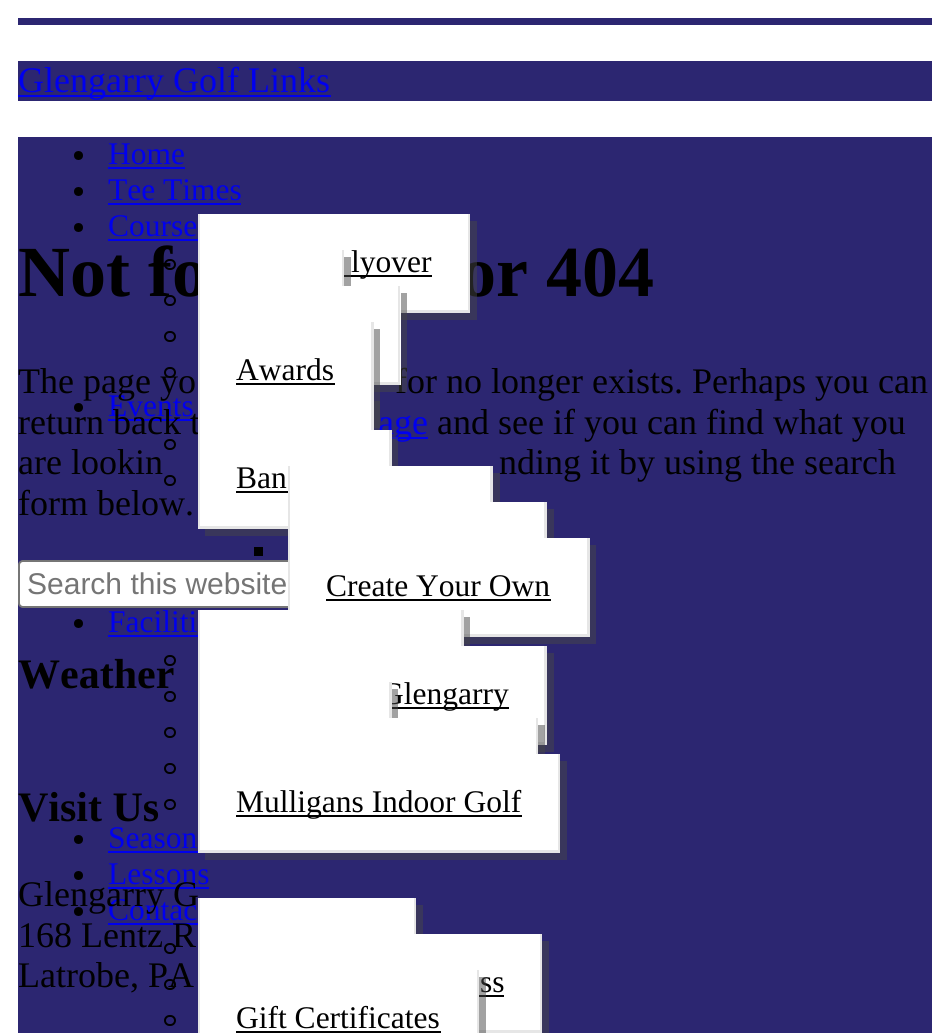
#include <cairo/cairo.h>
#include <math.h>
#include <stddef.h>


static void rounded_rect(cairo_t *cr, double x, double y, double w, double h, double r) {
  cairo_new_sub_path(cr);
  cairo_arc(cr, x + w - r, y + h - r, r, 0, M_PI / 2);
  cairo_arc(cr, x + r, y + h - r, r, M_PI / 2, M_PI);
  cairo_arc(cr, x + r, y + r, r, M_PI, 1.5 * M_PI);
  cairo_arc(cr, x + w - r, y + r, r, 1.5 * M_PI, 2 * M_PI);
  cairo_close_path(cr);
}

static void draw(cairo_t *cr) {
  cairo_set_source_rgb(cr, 1, 1, 1);
  cairo_paint(cr);
  cairo_set_source_rgb(cr, 44 / 255.0, 38 / 255.0, 113 / 255.0);
  cairo_rectangle(cr, 18, 18, 914, 7);
  cairo_fill(cr);
  cairo_rectangle(cr, 18, 61, 914, 40);
  cairo_fill(cr);
  cairo_set_source_rgb(cr, 0, 0, 238 / 255.0);
  cairo_rectangle(cr, 18, 95, 313, 2);
  cairo_fill(cr);
  cairo_set_source_rgb(cr, 44 / 255.0, 38 / 255.0, 113 / 255.0);
  cairo_rectangle(cr, 18, 137, 914, 896);
  cairo_fill(cr);
  cairo_set_source_rgb(cr, 0, 0, 0);
  cairo_arc(cr, 78.5, 155.5, 4.5, 0, 2 * M_PI);
  cairo_fill(cr);
  cairo_set_source_rgb(cr, 0, 0, 238 / 255.0);
  cairo_rectangle(cr, 108, 167, 77, 2);
  cairo_fill(cr);
  cairo_set_source_rgb(cr, 0, 0, 0);
  cairo_arc(cr, 78.5, 191.5, 4.5, 0, 2 * M_PI);
  cairo_fill(cr);
  cairo_set_source_rgb(cr, 0, 0, 238 / 255.0);
  cairo_rectangle(cr, 108, 203, 133, 2);
  cairo_fill(cr);
  cairo_set_source_rgb(cr, 0, 0, 0);
  cairo_arc(cr, 78.5, 227.5, 4.5, 0, 2 * M_PI);
  cairo_fill(cr);
  cairo_set_source_rgb(cr, 0, 0, 238 / 255.0);
  cairo_rectangle(cr, 108, 239, 90, 2);
  cairo_fill(cr);
  rounded_rect(cr, 165, 296, 10, 9, 4.5);
  cairo_set_source_rgb(cr, 0, 0, 0);
  cairo_stroke(cr);
  rounded_rect(cr, 165, 260, 10, 9, 4.5);
  cairo_stroke(cr);
  rounded_rect(cr, 165, 332, 10, 9, 4.5);
  cairo_stroke(cr);
  rounded_rect(cr, 165, 368, 10, 9, 4.5);
  cairo_stroke(cr);
  cairo_arc(cr, 78.5, 407.5, 4.5, 0, 2 * M_PI);
  cairo_fill(cr);
  cairo_set_source_rgb(cr, 0, 0, 238 / 255.0);
  cairo_rectangle(cr, 108, 419, 86, 2);
  cairo_fill(cr);
  rounded_rect(cr, 165, 440, 10, 9, 4.5);
  cairo_set_source_rgb(cr, 0, 0, 0);
  cairo_stroke(cr);
  rounded_rect(cr, 165, 476, 10, 9, 4.5);
  cairo_stroke(cr);
  cairo_rectangle(cr, 254, 547, 9, 9);
  cairo_fill(cr);
  cairo_arc(cr, 78.5, 623.5, 4.5, 0, 2 * M_PI);
  cairo_fill(cr);
  cairo_set_source_rgb(cr, 0, 0, 238 / 255.0);
  cairo_rectangle(cr, 108, 635, 90, 2);
  cairo_fill(cr);
  rounded_rect(cr, 165, 656, 10, 9, 4.5);
  cairo_set_source_rgb(cr, 0, 0, 0);
  cairo_stroke(cr);
  rounded_rect(cr, 165, 728, 10, 9, 4.5);
  cairo_stroke(cr);
  rounded_rect(cr, 165, 692, 10, 9, 4.5);
  cairo_stroke(cr);
  rounded_rect(cr, 165, 764, 10, 9, 4.5);
  cairo_stroke(cr);
  rounded_rect(cr, 165, 800, 10, 9, 4.5);
  cairo_stroke(cr);
  cairo_arc(cr, 78.5, 839.5, 4.5, 0, 2 * M_PI);
  cairo_fill(cr);
  cairo_set_source_rgb(cr, 0, 0, 238 / 255.0);
  cairo_rectangle(cr, 108, 851, 90, 2);
  cairo_fill(cr);
  cairo_set_source_rgb(cr, 0, 0, 0);
  cairo_arc(cr, 78.5, 875.5, 4.5, 0, 2 * M_PI);
  cairo_fill(cr);
  cairo_set_source_rgb(cr, 0, 0, 238 / 255.0);
  cairo_rectangle(cr, 108, 887, 101, 2);
  cairo_fill(cr);
  cairo_set_source_rgb(cr, 0, 0, 0);
  cairo_arc(cr, 78.5, 911.5, 4.5, 0, 2 * M_PI);
  cairo_fill(cr);
  cairo_set_source_rgb(cr, 0, 0, 238 / 255.0);
  cairo_rectangle(cr, 108, 923, 90, 2);
  cairo_fill(cr);
  cairo_set_source_rgb(cr, 57 / 255.0, 54 / 255.0, 92 / 255.0);
  cairo_new_path(cr);
  cairo_move_to(cr, 205, 997);
  cairo_line_to(cr, 205, 1004);
  cairo_line_to(cr, 423, 1004);
  cairo_line_to(cr, 423, 905);
  cairo_line_to(cr, 416, 905);
  cairo_line_to(cr, 416, 997);
  cairo_close_path(cr);
  cairo_fill(cr);
  cairo_set_source_rgb(cr, 1, 1, 1);
  cairo_rectangle(cr, 198, 898, 216, 36);
  cairo_fill(cr);
  cairo_set_source_rgba(cr, 0, 0, 0, 0.1);
  cairo_new_path(cr);
  cairo_move_to(cr, 198, 997);
  cairo_line_to(cr, 198, 898);
  cairo_line_to(cr, 200, 898);
  cairo_line_to(cr, 200, 994);
  cairo_close_path(cr);
  cairo_fill(cr);
  cairo_set_source_rgb(cr, 230 / 255.0, 230 / 255.0, 230 / 255.0);
  cairo_new_path(cr);
  cairo_move_to(cr, 416, 898);
  cairo_line_to(cr, 416, 997);
  cairo_line_to(cr, 414, 994);
  cairo_line_to(cr, 414, 898);
  cairo_close_path(cr);
  cairo_fill(cr);
  rounded_rect(cr, 165, 944, 10, 9, 4.5);
  cairo_set_source_rgb(cr, 0, 0, 0);
  cairo_stroke(cr);
  rounded_rect(cr, 165, 980, 10, 9, 4.5);
  cairo_stroke(cr);
  cairo_set_source_rgb(cr, 57 / 255.0, 54 / 255.0, 92 / 255.0);
  cairo_new_path(cr);
  cairo_move_to(cr, 205, 1033);
  cairo_line_to(cr, 205, 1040);
  cairo_line_to(cr, 549, 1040);
  cairo_line_to(cr, 549, 941);
  cairo_line_to(cr, 542, 941);
  cairo_line_to(cr, 542, 1033);
  cairo_close_path(cr);
  cairo_fill(cr);
  cairo_set_source_rgb(cr, 1, 1, 1);
  cairo_rectangle(cr, 198, 934, 344, 99);
  cairo_fill(cr);
  cairo_set_source_rgb(cr, 230 / 255.0, 230 / 255.0, 230 / 255.0);
  cairo_new_path(cr);
  cairo_move_to(cr, 542, 934);
  cairo_line_to(cr, 542, 1033);
  cairo_line_to(cr, 540, 1030);
  cairo_line_to(cr, 540, 934);
  cairo_close_path(cr);
  cairo_fill(cr);
  cairo_set_source_rgba(cr, 0, 0, 0, 0.1);
  cairo_new_path(cr);
  cairo_move_to(cr, 542, 1033);
  cairo_line_to(cr, 198, 1033);
  cairo_line_to(cr, 200, 1030);
  cairo_line_to(cr, 540, 1030);
  cairo_close_path(cr);
  cairo_fill(cr);
  cairo_new_path(cr);
  cairo_move_to(cr, 198, 1033);
  cairo_line_to(cr, 198, 934);
  cairo_line_to(cr, 200, 934);
  cairo_line_to(cr, 200, 1030);
  cairo_close_path(cr);
  cairo_fill(cr);
  cairo_set_source_rgb(cr, 0, 0, 0);
  cairo_rectangle(cr, 479, 995, 25, 2);
  cairo_fill(cr);
  rounded_rect(cr, 165, 1016, 10, 9, 4.5);
  cairo_stroke(cr);
  cairo_set_source_rgb(cr, 1, 1, 1);
  cairo_rectangle(cr, 200, 1030, 277, 3);
  cairo_fill(cr);
  cairo_set_source_rgb(cr, 230 / 255.0, 230 / 255.0, 230 / 255.0);
  cairo_new_path(cr);
  cairo_move_to(cr, 479, 970);
  cairo_line_to(cr, 479, 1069);
  cairo_line_to(cr, 477, 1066);
  cairo_line_to(cr, 477, 970);
  cairo_close_path(cr);
  cairo_fill(cr);
  cairo_set_source_rgb(cr, 0, 0, 0);
  cairo_rectangle(cr, 236, 1031, 205, 2);
  cairo_fill(cr);
  cairo_set_source_rgb(cr, 0, 0, 238 / 255.0);
  cairo_rectangle(cr, 392, 437, 36, 2);
  cairo_fill(cr);
  cairo_set_source_rgb(cr, 1, 1, 1);
  rounded_rect(cr, 19, 561, 414, 46, 4);
  cairo_fill_preserve(cr);
  cairo_set_source_rgb(cr, 118 / 255.0, 118 / 255.0, 118 / 255.0);
  cairo_stroke(cr);
  cairo_select_font_face(cr, "Liberation Serif", CAIRO_FONT_SLANT_NORMAL, CAIRO_FONT_WEIGHT_NORMAL);
  cairo_set_font_size(cr, 36);
  cairo_set_source_rgb(cr, 0, 0, 238 / 255.0);
  cairo_move_to(cr, 18, 92);
  cairo_show_text(cr, "Glengarry Golf Links");
  cairo_set_font_size(cr, 31.5);
  cairo_move_to(cr, 108, 164);
  cairo_show_text(cr, "Home");
  cairo_move_to(cr, 108, 200);
  cairo_show_text(cr, "Tee Times");
  cairo_move_to(cr, 108, 236);
  cairo_show_text(cr, "Course");
  cairo_move_to(cr, 108, 416);
  cairo_show_text(cr, "Events");
  cairo_move_to(cr, 108, 632);
  cairo_show_text(cr, "Faciliti");
  cairo_move_to(cr, 108, 848);
  cairo_show_text(cr, "Season");
  cairo_move_to(cr, 108, 884);
  cairo_show_text(cr, "Lessons");
  cairo_move_to(cr, 108, 920);
  cairo_show_text(cr, "Contac");
  cairo_set_source_rgb(cr, 0, 0, 0);
  cairo_move_to(cr, 480, 992);
  cairo_show_text(cr, "ss");
  cairo_move_to(cr, 236, 1028);
  cairo_show_text(cr, "Gift Certificates");
  cairo_set_source_rgba(cr, 70 / 255.0, 70 / 255.0, 70 / 255.0, 0.5);
  cairo_new_path(cr);
  cairo_move_to(cr, 205, 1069);
  cairo_line_to(cr, 205, 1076);
  cairo_line_to(cr, 486, 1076);
  cairo_line_to(cr, 486, 977);
  cairo_line_to(cr, 479, 977);
  cairo_line_to(cr, 479, 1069);
  cairo_close_path(cr);
  cairo_fill(cr);
  cairo_select_font_face(cr, "Liberation Serif", CAIRO_FONT_SLANT_NORMAL, CAIRO_FONT_WEIGHT_BOLD);
  cairo_set_font_size(cr, 72);
  cairo_set_source_rgb(cr, 0, 0, 0);
  cairo_move_to(cr, 18, 296);
  cairo_show_text(cr, "Not fo");
  cairo_move_to(cr, 460, 296);
  cairo_show_text(cr, "or 404");
  cairo_set_source_rgba(cr, 70 / 255.0, 70 / 255.0, 70 / 255.0, 0.5);
  cairo_new_path(cr);
  cairo_move_to(cr, 205, 313);
  cairo_line_to(cr, 205, 320);
  cairo_line_to(cr, 477, 320);
  cairo_line_to(cr, 477, 221);
  cairo_line_to(cr, 470, 221);
  cairo_line_to(cr, 470, 313);
  cairo_close_path(cr);
  cairo_fill(cr);
  cairo_set_source_rgb(cr, 1, 1, 1);
  cairo_rectangle(cr, 198, 214, 272, 99);
  cairo_fill(cr);
  cairo_set_source_rgb(cr, 230 / 255.0, 230 / 255.0, 230 / 255.0);
  cairo_new_path(cr);
  cairo_move_to(cr, 470, 214);
  cairo_line_to(cr, 470, 313);
  cairo_line_to(cr, 468, 310);
  cairo_line_to(cr, 468, 214);
  cairo_close_path(cr);
  cairo_fill(cr);
  cairo_set_source_rgba(cr, 0, 0, 0, 0.1);
  cairo_new_path(cr);
  cairo_move_to(cr, 470, 313);
  cairo_line_to(cr, 198, 313);
  cairo_line_to(cr, 200, 310);
  cairo_line_to(cr, 468, 310);
  cairo_close_path(cr);
  cairo_fill(cr);
  cairo_new_path(cr);
  cairo_move_to(cr, 198, 313);
  cairo_line_to(cr, 198, 214);
  cairo_line_to(cr, 200, 214);
  cairo_line_to(cr, 200, 310);
  cairo_close_path(cr);
  cairo_fill(cr);
  cairo_set_source_rgb(cr, 1, 1, 1);
  cairo_rectangle(cr, 198, 250, 2, 36);
  cairo_fill(cr);
  cairo_set_source_rgba(cr, 0, 0, 0, 0.1);
  cairo_new_path(cr);
  cairo_move_to(cr, 198, 349);
  cairo_line_to(cr, 198, 250);
  cairo_line_to(cr, 200, 250);
  cairo_line_to(cr, 200, 346);
  cairo_close_path(cr);
  cairo_fill(cr);
  cairo_set_source_rgb(cr, 0, 0, 0);
  cairo_rectangle(cr, 344, 275, 88, 2);
  cairo_fill(cr);
  cairo_set_source_rgba(cr, 70 / 255.0, 70 / 255.0, 70 / 255.0, 0.5);
  cairo_new_path(cr);
  cairo_move_to(cr, 205, 349);
  cairo_line_to(cr, 205, 356);
  cairo_line_to(cr, 351, 356);
  cairo_line_to(cr, 351, 257);
  cairo_line_to(cr, 344, 257);
  cairo_line_to(cr, 344, 349);
  cairo_close_path(cr);
  cairo_fill(cr);
  cairo_set_source_rgb(cr, 230 / 255.0, 230 / 255.0, 230 / 255.0);
  cairo_new_path(cr);
  cairo_move_to(cr, 344, 250);
  cairo_line_to(cr, 344, 349);
  cairo_line_to(cr, 342, 346);
  cairo_line_to(cr, 342, 250);
  cairo_close_path(cr);
  cairo_fill(cr);
  cairo_select_font_face(cr, "Liberation Serif", CAIRO_FONT_SLANT_NORMAL, CAIRO_FONT_WEIGHT_NORMAL);
  cairo_set_font_size(cr, 31.5);
  cairo_set_source_rgb(cr, 0, 0, 0);
  cairo_move_to(cr, 351, 272);
  cairo_show_text(cr, "lyover");
  cairo_set_font_size(cr, 36);
  cairo_move_to(cr, 18, 393);
  cairo_show_text(cr, "The page yo");
  cairo_move_to(cr, 395, 393);
  cairo_show_text(cr, "for no longer exists. Perhaps you can");
  cairo_set_source_rgba(cr, 70 / 255.0, 70 / 255.0, 70 / 255.0, 0.5);
  cairo_new_path(cr);
  cairo_move_to(cr, 205, 385);
  cairo_line_to(cr, 205, 392);
  cairo_line_to(cr, 407, 392);
  cairo_line_to(cr, 407, 293);
  cairo_line_to(cr, 400, 293);
  cairo_line_to(cr, 400, 385);
  cairo_close_path(cr);
  cairo_fill(cr);
  cairo_set_source_rgb(cr, 1, 1, 1);
  cairo_rectangle(cr, 198, 286, 203, 99);
  cairo_fill(cr);
  cairo_set_source_rgb(cr, 230 / 255.0, 230 / 255.0, 230 / 255.0);
  cairo_new_path(cr);
  cairo_move_to(cr, 400, 286);
  cairo_line_to(cr, 400, 385);
  cairo_line_to(cr, 398, 382);
  cairo_line_to(cr, 398, 286);
  cairo_close_path(cr);
  cairo_fill(cr);
  cairo_set_source_rgba(cr, 0, 0, 0, 0.1);
  cairo_new_path(cr);
  cairo_move_to(cr, 400, 385);
  cairo_line_to(cr, 198, 385);
  cairo_line_to(cr, 200, 382);
  cairo_line_to(cr, 398, 382);
  cairo_close_path(cr);
  cairo_fill(cr);
  cairo_new_path(cr);
  cairo_move_to(cr, 198, 385);
  cairo_line_to(cr, 198, 286);
  cairo_line_to(cr, 200, 286);
  cairo_line_to(cr, 200, 382);
  cairo_close_path(cr);
  cairo_fill(cr);
  cairo_set_source_rgb(cr, 0, 0, 0);
  cairo_move_to(cr, 18, 434);
  cairo_show_text(cr, "return back t");
  cairo_set_source_rgb(cr, 0, 0, 238 / 255.0);
  cairo_move_to(cr, 378, 434);
  cairo_show_text(cr, "age");
  cairo_set_source_rgba(cr, 70 / 255.0, 70 / 255.0, 70 / 255.0, 0.5);
  cairo_new_path(cr);
  cairo_move_to(cr, 205, 421);
  cairo_line_to(cr, 205, 428);
  cairo_line_to(cr, 380, 428);
  cairo_line_to(cr, 380, 329);
  cairo_line_to(cr, 374, 329);
  cairo_line_to(cr, 374, 421);
  cairo_close_path(cr);
  cairo_fill(cr);
  cairo_set_source_rgb(cr, 230 / 255.0, 230 / 255.0, 230 / 255.0);
  cairo_new_path(cr);
  cairo_move_to(cr, 374, 322);
  cairo_line_to(cr, 374, 421);
  cairo_line_to(cr, 371, 418);
  cairo_line_to(cr, 371, 322);
  cairo_close_path(cr);
  cairo_fill(cr);
  cairo_set_source_rgba(cr, 70 / 255.0, 70 / 255.0, 70 / 255.0, 0.5);
  cairo_new_path(cr);
  cairo_move_to(cr, 205, 493);
  cairo_line_to(cr, 205, 500);
  cairo_line_to(cr, 380, 500);
  cairo_line_to(cr, 380, 401);
  cairo_line_to(cr, 374, 401);
  cairo_line_to(cr, 374, 493);
  cairo_close_path(cr);
  cairo_fill(cr);
  cairo_set_source_rgb(cr, 230 / 255.0, 230 / 255.0, 230 / 255.0);
  cairo_new_path(cr);
  cairo_move_to(cr, 374, 394);
  cairo_line_to(cr, 374, 493);
  cairo_line_to(cr, 371, 490);
  cairo_line_to(cr, 371, 394);
  cairo_close_path(cr);
  cairo_fill(cr);
  cairo_set_source_rgba(cr, 70 / 255.0, 70 / 255.0, 70 / 255.0, 0.5);
  cairo_new_path(cr);
  cairo_move_to(cr, 205, 529);
  cairo_line_to(cr, 205, 536);
  cairo_line_to(cr, 398, 536);
  cairo_line_to(cr, 398, 437);
  cairo_line_to(cr, 392, 437);
  cairo_line_to(cr, 392, 529);
  cairo_close_path(cr);
  cairo_fill(cr);
  cairo_set_source_rgb(cr, 230 / 255.0, 230 / 255.0, 230 / 255.0);
  cairo_new_path(cr);
  cairo_move_to(cr, 392, 430);
  cairo_line_to(cr, 392, 529);
  cairo_line_to(cr, 389, 526);
  cairo_line_to(cr, 389, 430);
  cairo_close_path(cr);
  cairo_fill(cr);
  cairo_set_source_rgb(cr, 1, 1, 1);
  cairo_rectangle(cr, 198, 322, 173, 72);
  cairo_fill(cr);
  cairo_set_source_rgba(cr, 0, 0, 0, 0.1);
  cairo_new_path(cr);
  cairo_move_to(cr, 198, 421);
  cairo_line_to(cr, 198, 322);
  cairo_line_to(cr, 200, 322);
  cairo_line_to(cr, 200, 418);
  cairo_close_path(cr);
  cairo_fill(cr);
  cairo_set_source_rgb(cr, 1, 1, 1);
  cairo_rectangle(cr, 198, 394, 173, 36);
  cairo_fill(cr);
  cairo_set_source_rgba(cr, 0, 0, 0, 0.1);
  cairo_new_path(cr);
  cairo_move_to(cr, 198, 493);
  cairo_line_to(cr, 198, 394);
  cairo_line_to(cr, 200, 394);
  cairo_line_to(cr, 200, 490);
  cairo_close_path(cr);
  cairo_fill(cr);
  cairo_set_source_rgb(cr, 1, 1, 1);
  cairo_rectangle(cr, 198, 430, 191, 99);
  cairo_fill(cr);
  cairo_set_source_rgba(cr, 0, 0, 0, 0.1);
  cairo_new_path(cr);
  cairo_move_to(cr, 392, 529);
  cairo_line_to(cr, 198, 529);
  cairo_line_to(cr, 200, 526);
  cairo_line_to(cr, 389, 526);
  cairo_close_path(cr);
  cairo_fill(cr);
  cairo_new_path(cr);
  cairo_move_to(cr, 288, 565);
  cairo_line_to(cr, 288, 466);
  cairo_line_to(cr, 290, 466);
  cairo_line_to(cr, 290, 562);
  cairo_close_path(cr);
  cairo_fill(cr);
  cairo_set_font_size(cr, 31.5);
  cairo_set_source_rgb(cr, 0, 0, 0);
  cairo_move_to(cr, 236, 488);
  cairo_show_text(cr, "Ban");
  cairo_rectangle(cr, 236, 491, 52, 2);
  cairo_fill(cr);
  cairo_set_source_rgba(cr, 0, 0, 0, 0.1);
  cairo_new_path(cr);
  cairo_move_to(cr, 198, 529);
  cairo_line_to(cr, 198, 430);
  cairo_line_to(cr, 200, 430);
  cairo_line_to(cr, 200, 526);
  cairo_close_path(cr);
  cairo_fill(cr);
  cairo_set_source_rgb(cr, 0, 0, 0);
  cairo_move_to(cr, 236, 380);
  cairo_show_text(cr, "Awards");
  cairo_rectangle(cr, 236, 383, 99, 2);
  cairo_fill(cr);
  cairo_set_font_size(cr, 36);
  cairo_move_to(cr, 437, 434);
  cairo_show_text(cr, "and see if you can find what you");
  cairo_move_to(cr, 18, 474);
  cairo_show_text(cr, "are lookin");
  cairo_move_to(cr, 499, 474);
  cairo_show_text(cr, "nding it by using the search");
  cairo_set_source_rgba(cr, 70 / 255.0, 70 / 255.0, 70 / 255.0, 0.5);
  cairo_new_path(cr);
  cairo_move_to(cr, 295, 565);
  cairo_line_to(cr, 295, 572);
  cairo_line_to(cr, 500, 572);
  cairo_line_to(cr, 500, 473);
  cairo_line_to(cr, 493, 473);
  cairo_line_to(cr, 493, 565);
  cairo_close_path(cr);
  cairo_fill(cr);
  cairo_set_source_rgb(cr, 230 / 255.0, 230 / 255.0, 230 / 255.0);
  cairo_new_path(cr);
  cairo_move_to(cr, 493, 466);
  cairo_line_to(cr, 493, 565);
  cairo_line_to(cr, 490, 562);
  cairo_line_to(cr, 490, 466);
  cairo_close_path(cr);
  cairo_fill(cr);
  cairo_set_source_rgba(cr, 70 / 255.0, 70 / 255.0, 70 / 255.0, 0.5);
  cairo_new_path(cr);
  cairo_move_to(cr, 295, 601);
  cairo_line_to(cr, 295, 608);
  cairo_line_to(cr, 554, 608);
  cairo_line_to(cr, 554, 509);
  cairo_line_to(cr, 547, 509);
  cairo_line_to(cr, 547, 601);
  cairo_close_path(cr);
  cairo_fill(cr);
  cairo_set_source_rgb(cr, 230 / 255.0, 230 / 255.0, 230 / 255.0);
  cairo_new_path(cr);
  cairo_move_to(cr, 547, 502);
  cairo_line_to(cr, 547, 601);
  cairo_line_to(cr, 544, 598);
  cairo_line_to(cr, 544, 502);
  cairo_close_path(cr);
  cairo_fill(cr);
  cairo_set_source_rgb(cr, 57 / 255.0, 54 / 255.0, 92 / 255.0);
  cairo_new_path(cr);
  cairo_move_to(cr, 295, 637);
  cairo_line_to(cr, 295, 644);
  cairo_line_to(cr, 596, 644);
  cairo_line_to(cr, 596, 545);
  cairo_line_to(cr, 590, 545);
  cairo_line_to(cr, 590, 637);
  cairo_close_path(cr);
  cairo_fill(cr);
  cairo_set_source_rgb(cr, 1, 1, 1);
  cairo_rectangle(cr, 288, 502, 256, 36);
  cairo_fill(cr);
  cairo_set_source_rgba(cr, 0, 0, 0, 0.1);
  cairo_new_path(cr);
  cairo_move_to(cr, 288, 601);
  cairo_line_to(cr, 288, 502);
  cairo_line_to(cr, 290, 502);
  cairo_line_to(cr, 290, 598);
  cairo_close_path(cr);
  cairo_fill(cr);
  cairo_set_source_rgb(cr, 1, 1, 1);
  cairo_rectangle(cr, 288, 538, 302, 99);
  cairo_fill(cr);
  cairo_set_source_rgb(cr, 230 / 255.0, 230 / 255.0, 230 / 255.0);
  cairo_new_path(cr);
  cairo_move_to(cr, 590, 538);
  cairo_line_to(cr, 590, 637);
  cairo_line_to(cr, 587, 634);
  cairo_line_to(cr, 587, 538);
  cairo_close_path(cr);
  cairo_fill(cr);
  cairo_set_source_rgba(cr, 0, 0, 0, 0.1);
  cairo_new_path(cr);
  cairo_move_to(cr, 590, 637);
  cairo_line_to(cr, 288, 637);
  cairo_line_to(cr, 290, 634);
  cairo_line_to(cr, 587, 634);
  cairo_close_path(cr);
  cairo_fill(cr);
  cairo_new_path(cr);
  cairo_move_to(cr, 288, 637);
  cairo_line_to(cr, 288, 538);
  cairo_line_to(cr, 290, 538);
  cairo_line_to(cr, 290, 634);
  cairo_close_path(cr);
  cairo_fill(cr);
  cairo_set_source_rgba(cr, 70 / 255.0, 70 / 255.0, 70 / 255.0, 0.5);
  cairo_new_path(cr);
  cairo_move_to(cr, 205, 709);
  cairo_line_to(cr, 205, 716);
  cairo_line_to(cr, 470, 716);
  cairo_line_to(cr, 470, 617);
  cairo_line_to(cr, 464, 617);
  cairo_line_to(cr, 464, 709);
  cairo_close_path(cr);
  cairo_fill(cr);
  cairo_set_source_rgb(cr, 230 / 255.0, 230 / 255.0, 230 / 255.0);
  cairo_new_path(cr);
  cairo_move_to(cr, 464, 610);
  cairo_line_to(cr, 464, 709);
  cairo_line_to(cr, 461, 706);
  cairo_line_to(cr, 461, 610);
  cairo_close_path(cr);
  cairo_fill(cr);
  cairo_set_source_rgb(cr, 57 / 255.0, 54 / 255.0, 92 / 255.0);
  cairo_new_path(cr);
  cairo_move_to(cr, 205, 745);
  cairo_line_to(cr, 205, 752);
  cairo_line_to(cr, 554, 752);
  cairo_line_to(cr, 554, 653);
  cairo_line_to(cr, 547, 653);
  cairo_line_to(cr, 547, 745);
  cairo_close_path(cr);
  cairo_fill(cr);
  cairo_set_source_rgb(cr, 1, 1, 1);
  cairo_rectangle(cr, 198, 610, 263, 36);
  cairo_fill(cr);
  cairo_set_source_rgba(cr, 0, 0, 0, 0.1);
  cairo_new_path(cr);
  cairo_move_to(cr, 198, 709);
  cairo_line_to(cr, 198, 610);
  cairo_line_to(cr, 200, 610);
  cairo_line_to(cr, 200, 706);
  cairo_close_path(cr);
  cairo_fill(cr);
  cairo_set_source_rgb(cr, 1, 1, 1);
  cairo_rectangle(cr, 198, 646, 349, 99);
  cairo_fill(cr);
  cairo_set_source_rgb(cr, 0, 0, 0);
  cairo_rectangle(cr, 392, 707, 117, 2);
  cairo_fill(cr);
  cairo_set_font_size(cr, 31.5);
  cairo_move_to(cr, 381, 704);
  cairo_show_text(cr, "Glengarry");
  cairo_set_source_rgb(cr, 230 / 255.0, 230 / 255.0, 230 / 255.0);
  cairo_new_path(cr);
  cairo_move_to(cr, 547, 646);
  cairo_line_to(cr, 547, 745);
  cairo_line_to(cr, 544, 742);
  cairo_line_to(cr, 544, 646);
  cairo_close_path(cr);
  cairo_fill(cr);
  cairo_set_source_rgba(cr, 0, 0, 0, 0.1);
  cairo_new_path(cr);
  cairo_move_to(cr, 547, 745);
  cairo_line_to(cr, 198, 745);
  cairo_line_to(cr, 200, 742);
  cairo_line_to(cr, 544, 742);
  cairo_close_path(cr);
  cairo_fill(cr);
  cairo_set_source_rgba(cr, 70 / 255.0, 70 / 255.0, 70 / 255.0, 0.5);
  cairo_new_path(cr);
  cairo_move_to(cr, 205, 781);
  cairo_line_to(cr, 205, 788);
  cairo_line_to(cr, 398, 788);
  cairo_line_to(cr, 398, 689);
  cairo_line_to(cr, 392, 689);
  cairo_line_to(cr, 392, 781);
  cairo_close_path(cr);
  cairo_fill(cr);
  cairo_set_source_rgb(cr, 230 / 255.0, 230 / 255.0, 230 / 255.0);
  cairo_new_path(cr);
  cairo_move_to(cr, 392, 682);
  cairo_line_to(cr, 392, 781);
  cairo_line_to(cr, 389, 778);
  cairo_line_to(cr, 389, 682);
  cairo_close_path(cr);
  cairo_fill(cr);
  cairo_set_source_rgba(cr, 70 / 255.0, 70 / 255.0, 70 / 255.0, 0.5);
  cairo_new_path(cr);
  cairo_move_to(cr, 205, 817);
  cairo_line_to(cr, 205, 824);
  cairo_line_to(cr, 545, 824);
  cairo_line_to(cr, 545, 725);
  cairo_line_to(cr, 538, 725);
  cairo_line_to(cr, 538, 817);
  cairo_close_path(cr);
  cairo_fill(cr);
  cairo_set_source_rgb(cr, 230 / 255.0, 230 / 255.0, 230 / 255.0);
  cairo_new_path(cr);
  cairo_move_to(cr, 538, 718);
  cairo_line_to(cr, 538, 817);
  cairo_line_to(cr, 536, 814);
  cairo_line_to(cr, 536, 718);
  cairo_close_path(cr);
  cairo_fill(cr);
  cairo_set_source_rgb(cr, 57 / 255.0, 54 / 255.0, 92 / 255.0);
  cairo_new_path(cr);
  cairo_move_to(cr, 205, 853);
  cairo_line_to(cr, 205, 860);
  cairo_line_to(cr, 567, 860);
  cairo_line_to(cr, 567, 761);
  cairo_line_to(cr, 560, 761);
  cairo_line_to(cr, 560, 853);
  cairo_close_path(cr);
  cairo_fill(cr);
  cairo_set_source_rgba(cr, 0, 0, 0, 0.1);
  cairo_new_path(cr);
  cairo_move_to(cr, 198, 745);
  cairo_line_to(cr, 198, 646);
  cairo_line_to(cr, 200, 646);
  cairo_line_to(cr, 200, 742);
  cairo_close_path(cr);
  cairo_fill(cr);
  cairo_set_source_rgb(cr, 1, 1, 1);
  cairo_rectangle(cr, 198, 682, 191, 36);
  cairo_fill(cr);
  cairo_set_source_rgba(cr, 0, 0, 0, 0.1);
  cairo_new_path(cr);
  cairo_move_to(cr, 198, 781);
  cairo_line_to(cr, 198, 682);
  cairo_line_to(cr, 200, 682);
  cairo_line_to(cr, 200, 778);
  cairo_close_path(cr);
  cairo_fill(cr);
  cairo_set_source_rgb(cr, 1, 1, 1);
  cairo_rectangle(cr, 198, 718, 338, 36);
  cairo_fill(cr);
  cairo_set_source_rgba(cr, 0, 0, 0, 0.1);
  cairo_new_path(cr);
  cairo_move_to(cr, 198, 817);
  cairo_line_to(cr, 198, 718);
  cairo_line_to(cr, 200, 718);
  cairo_line_to(cr, 200, 814);
  cairo_close_path(cr);
  cairo_fill(cr);
  cairo_set_source_rgb(cr, 1, 1, 1);
  cairo_rectangle(cr, 198, 754, 362, 99);
  cairo_fill(cr);
  cairo_set_source_rgb(cr, 0, 0, 0);
  cairo_rectangle(cr, 236, 815, 286, 2);
  cairo_fill(cr);
  cairo_move_to(cr, 236, 812);
  cairo_show_text(cr, "Mulligans Indoor Golf");
  cairo_set_source_rgb(cr, 230 / 255.0, 230 / 255.0, 230 / 255.0);
  cairo_new_path(cr);
  cairo_move_to(cr, 560, 754);
  cairo_line_to(cr, 560, 853);
  cairo_line_to(cr, 558, 850);
  cairo_line_to(cr, 558, 754);
  cairo_close_path(cr);
  cairo_fill(cr);
  cairo_set_source_rgba(cr, 0, 0, 0, 0.1);
  cairo_new_path(cr);
  cairo_move_to(cr, 560, 853);
  cairo_line_to(cr, 198, 853);
  cairo_line_to(cr, 200, 850);
  cairo_line_to(cr, 558, 850);
  cairo_close_path(cr);
  cairo_fill(cr);
  cairo_new_path(cr);
  cairo_move_to(cr, 198, 853);
  cairo_line_to(cr, 198, 754);
  cairo_line_to(cr, 200, 754);
  cairo_line_to(cr, 200, 850);
  cairo_close_path(cr);
  cairo_fill(cr);
  cairo_set_source_rgb(cr, 0, 0, 0);
  cairo_move_to(cr, 326, 596);
  cairo_show_text(cr, "Create Your Own");
  cairo_rectangle(cr, 326, 599, 225, 2);
  cairo_fill(cr);
  cairo_set_source_rgb(cr, 1, 1, 1);
  cairo_rectangle(cr, 389, 466, 101, 36);
  cairo_fill(cr);
  cairo_set_font_size(cr, 36);
  cairo_set_source_rgb(cr, 0, 0, 0);
  cairo_move_to(cr, 18, 515);
  cairo_show_text(cr, "form below.");
  cairo_select_font_face(cr, "Liberation Sans", CAIRO_FONT_SLANT_NORMAL, CAIRO_FONT_WEIGHT_NORMAL);
  cairo_set_font_size(cr, 30);
  cairo_set_source_rgb(cr, 117 / 255.0, 117 / 255.0, 117 / 255.0);
  cairo_move_to(cr, 27, 594);
  cairo_show_text(cr, "Search this website");
  cairo_select_font_face(cr, "Liberation Serif", CAIRO_FONT_SLANT_NORMAL, CAIRO_FONT_WEIGHT_BOLD);
  cairo_set_font_size(cr, 42);
  cairo_set_source_rgb(cr, 0, 0, 0);
  cairo_move_to(cr, 18, 688);
  cairo_show_text(cr, "Weather");
  cairo_move_to(cr, 18, 821);
  cairo_show_text(cr, "Visit Us");
  cairo_select_font_face(cr, "Liberation Serif", CAIRO_FONT_SLANT_NORMAL, CAIRO_FONT_WEIGHT_NORMAL);
  cairo_set_font_size(cr, 36);
  cairo_move_to(cr, 18, 906);
  cairo_show_text(cr, "Glengarry G");
  cairo_move_to(cr, 18, 947);
  cairo_show_text(cr, "168 Lentz R");
  cairo_move_to(cr, 18, 987);
  cairo_show_text(cr, "Latrobe, PA");
}

int main(void) {
  cairo_surface_t *surface = cairo_image_surface_create(CAIRO_FORMAT_RGB24, 948, 1033);
  cairo_t *cr = cairo_create(surface);
  cairo_font_options_t *options = cairo_font_options_create();
  cairo_font_options_set_hint_metrics(options, CAIRO_HINT_METRICS_OFF);
  cairo_font_options_set_hint_style(options, CAIRO_HINT_STYLE_NONE);
  cairo_set_font_options(cr, options);
  cairo_set_miter_limit(cr, 4);
  draw(cr);
  cairo_surface_write_to_png(surface, "out.png");
  cairo_font_options_destroy(options);
  cairo_destroy(cr);
  cairo_surface_destroy(surface);
  return 0;
}
